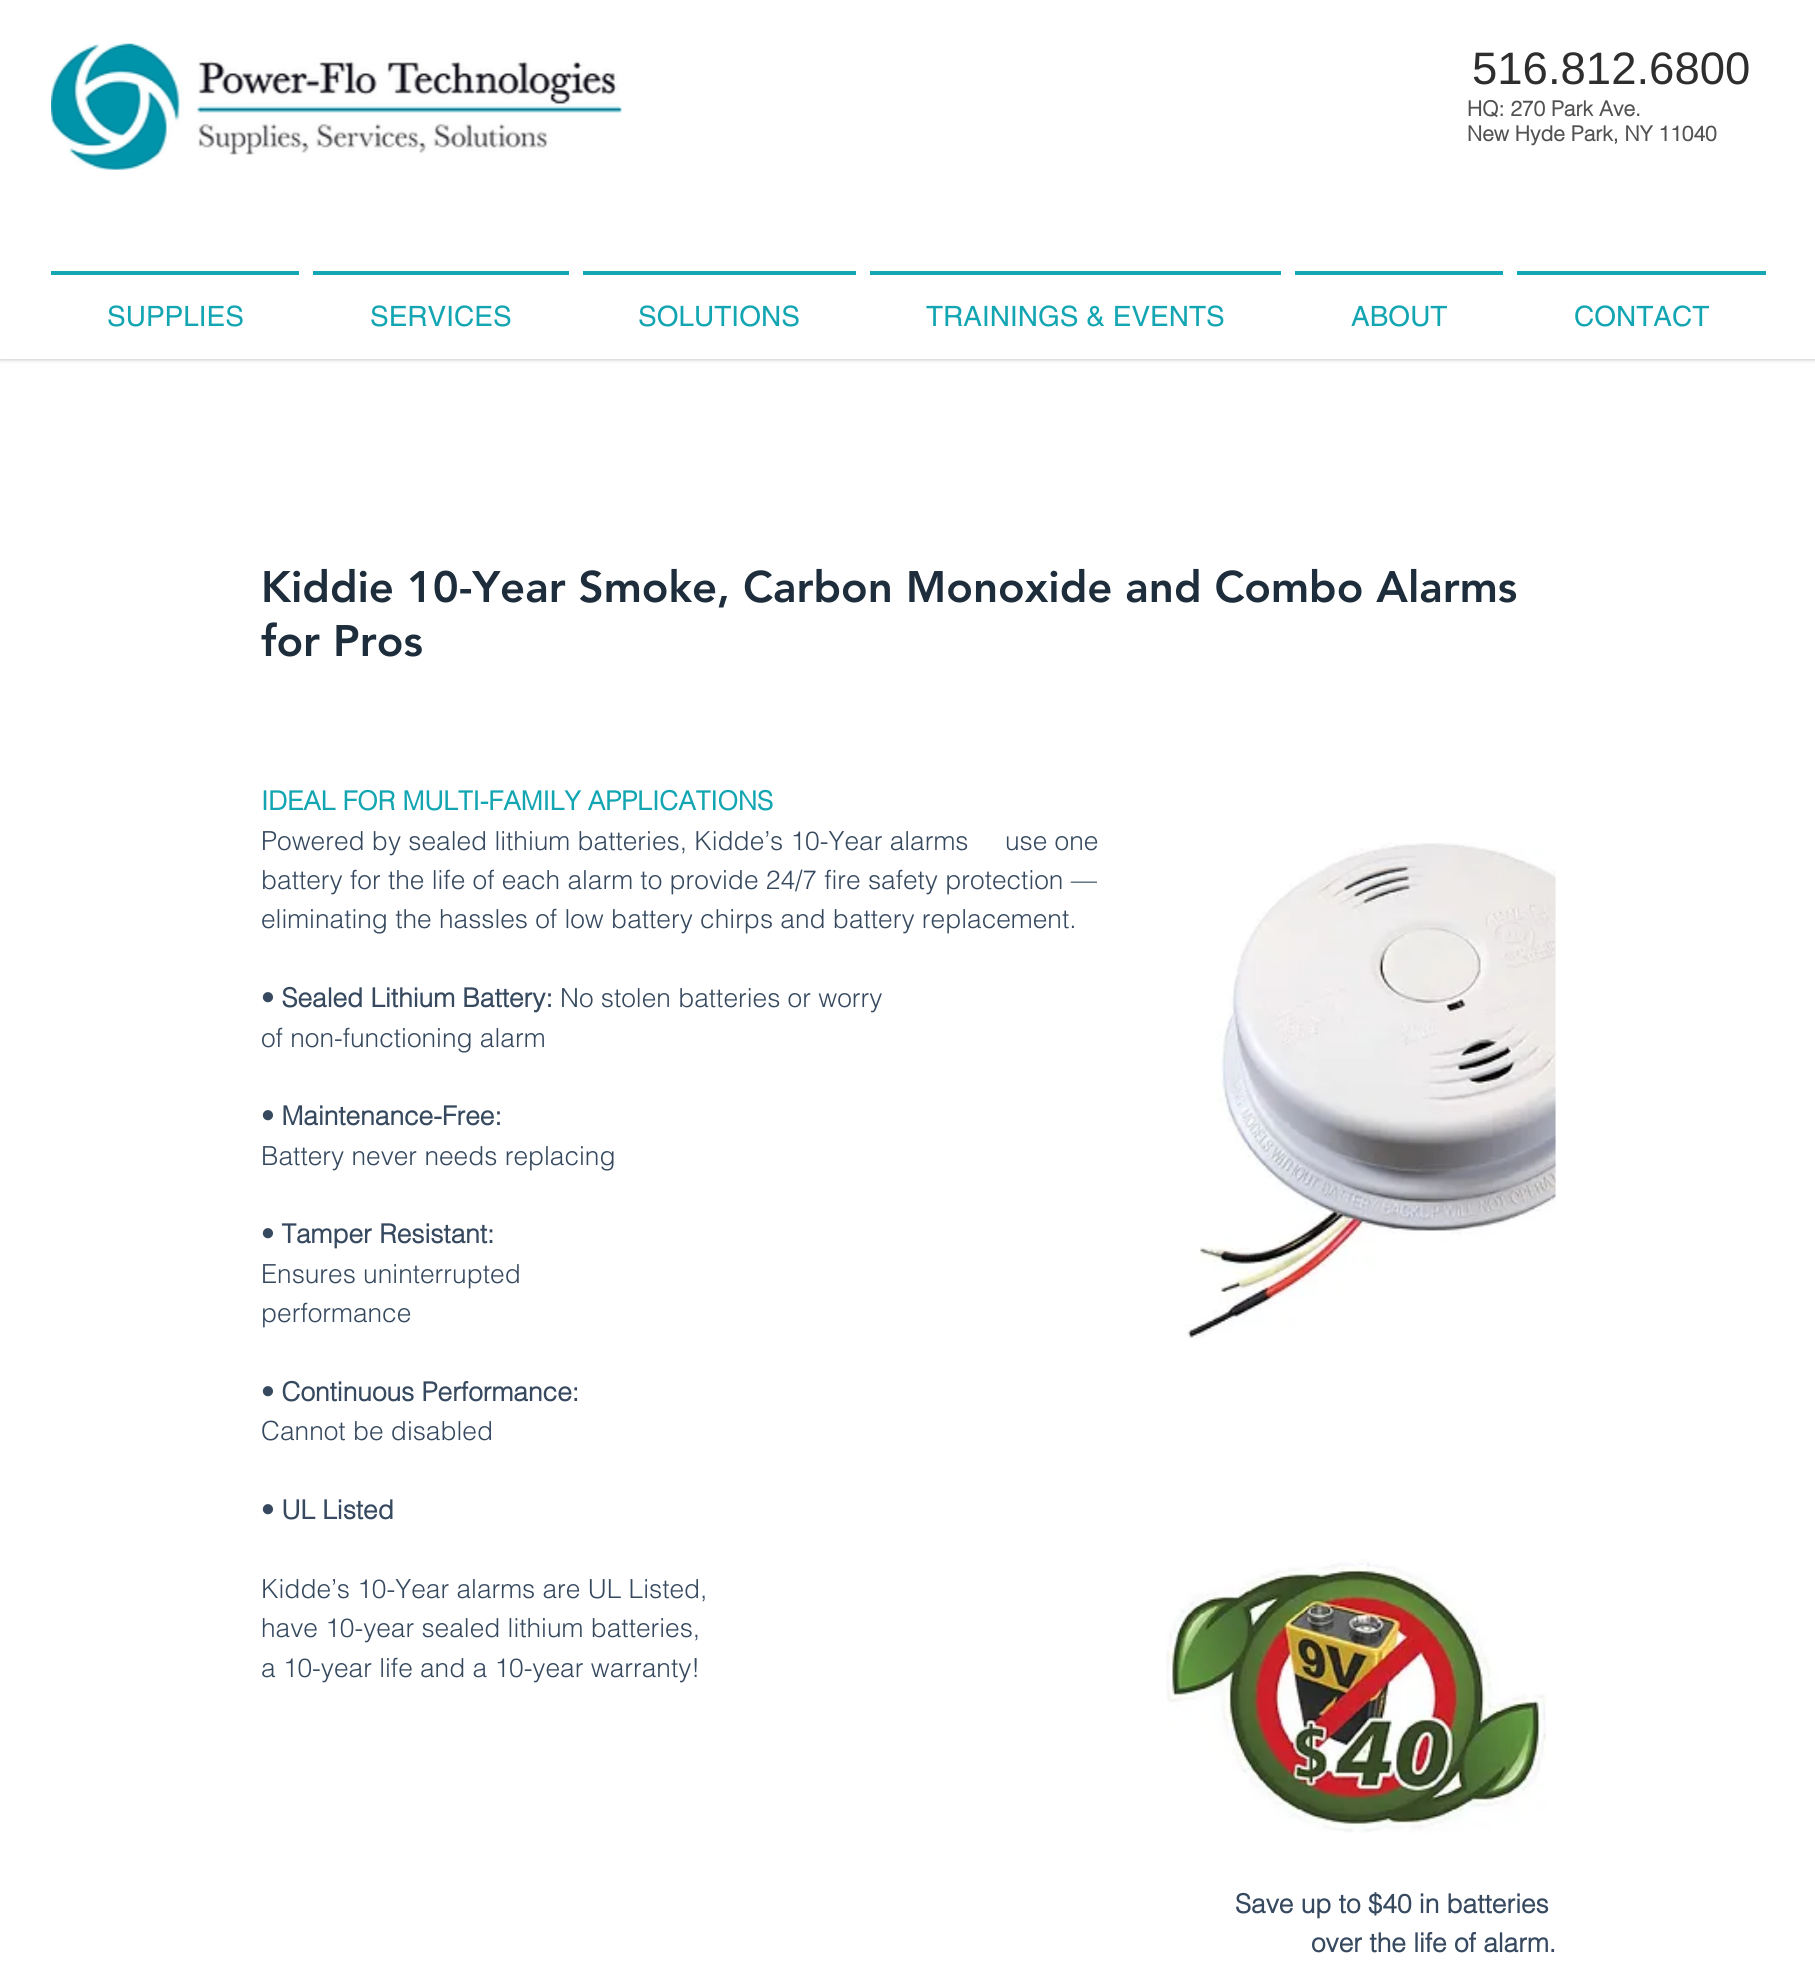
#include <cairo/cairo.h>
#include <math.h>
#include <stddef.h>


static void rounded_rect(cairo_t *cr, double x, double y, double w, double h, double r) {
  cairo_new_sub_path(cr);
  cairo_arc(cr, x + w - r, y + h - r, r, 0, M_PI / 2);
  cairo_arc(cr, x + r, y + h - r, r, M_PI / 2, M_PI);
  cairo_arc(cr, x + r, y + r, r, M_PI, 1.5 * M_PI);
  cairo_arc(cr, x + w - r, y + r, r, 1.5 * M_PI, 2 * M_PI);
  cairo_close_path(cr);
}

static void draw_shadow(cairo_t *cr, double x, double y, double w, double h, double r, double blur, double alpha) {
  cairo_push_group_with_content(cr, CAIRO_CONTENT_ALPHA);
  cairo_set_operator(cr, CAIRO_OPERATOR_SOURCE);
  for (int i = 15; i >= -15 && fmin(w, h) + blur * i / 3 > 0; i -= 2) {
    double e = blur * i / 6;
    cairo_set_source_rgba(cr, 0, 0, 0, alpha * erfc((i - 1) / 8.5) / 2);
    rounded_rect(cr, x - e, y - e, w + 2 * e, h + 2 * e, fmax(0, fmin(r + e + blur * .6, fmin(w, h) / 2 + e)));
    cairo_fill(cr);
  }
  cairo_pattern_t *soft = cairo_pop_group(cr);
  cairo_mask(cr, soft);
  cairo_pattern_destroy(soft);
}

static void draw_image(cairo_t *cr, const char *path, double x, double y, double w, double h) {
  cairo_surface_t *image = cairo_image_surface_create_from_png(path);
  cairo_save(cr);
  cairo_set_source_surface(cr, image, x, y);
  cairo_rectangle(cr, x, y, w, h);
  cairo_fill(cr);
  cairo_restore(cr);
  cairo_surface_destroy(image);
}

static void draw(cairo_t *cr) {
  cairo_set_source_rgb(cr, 1, 1, 1);
  cairo_paint(cr);
  cairo_set_source_rgb(cr, 0, 0, 0);
  draw_shadow(cr, 0, 0, 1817, 359, 0, 2.5, 0.3);
  cairo_set_source_rgb(cr, 1, 1, 1);
  cairo_rectangle(cr, 0, 0, 1815, 359);
  cairo_fill(cr);
  draw_image(cr, "images/1.png", 51, 43, 571, 127);
  cairo_set_source_rgb(cr, 19 / 255.0, 167 / 255.0, 180 / 255.0);
  cairo_rectangle(cr, 51, 271, 248, 4);
  cairo_fill(cr);
  cairo_rectangle(cr, 313, 271, 256, 4);
  cairo_fill(cr);
  cairo_rectangle(cr, 583, 271, 273, 4);
  cairo_fill(cr);
  cairo_rectangle(cr, 870, 271, 411, 4);
  cairo_fill(cr);
  cairo_rectangle(cr, 1295, 271, 208, 4);
  cairo_fill(cr);
  cairo_rectangle(cr, 1517, 271, 249, 4);
  cairo_fill(cr);
  draw_image(cr, "images/2.png", 1185, 842, 371, 497);
  draw_image(cr, "images/3.png", 1166, 1559, 381, 274);
  cairo_select_font_face(cr, "Liberation Sans", CAIRO_FONT_SLANT_NORMAL, CAIRO_FONT_WEIGHT_NORMAL);
  cairo_set_font_size(cr, 45.5);
  cairo_set_source_rgb(cr, 47 / 255.0, 46 / 255.0, 46 / 255.0);
  cairo_move_to(cr, 1472, 84);
  cairo_show_text(cr, "516.812.6800");
  cairo_select_font_face(cr, "helvetica", CAIRO_FONT_SLANT_NORMAL, CAIRO_FONT_WEIGHT_BOLD);
  cairo_set_font_size(cr, 21);
  cairo_set_source_rgb(cr, 82 / 255.0, 82 / 255.0, 82 / 255.0);
  cairo_move_to(cr, 1467, 116);
  cairo_show_text(cr, "HQ: 270 Park Ave.");
  cairo_move_to(cr, 1467, 141);
  cairo_show_text(cr, "New Hyde Park, NY 11040");
  cairo_select_font_face(cr, "helvetica", CAIRO_FONT_SLANT_NORMAL, CAIRO_FONT_WEIGHT_NORMAL);
  cairo_set_font_size(cr, 28);
  cairo_set_source_rgb(cr, 19 / 255.0, 165 / 255.0, 178 / 255.0);
  cairo_move_to(cr, 107, 326);
  cairo_show_text(cr, "SUPPLIES");
  cairo_move_to(cr, 370, 326);
  cairo_show_text(cr, "SERVICES");
  cairo_move_to(cr, 638, 326);
  cairo_show_text(cr, "SOLUTIONS");
  cairo_move_to(cr, 926, 326);
  cairo_show_text(cr, "TRAININGS & EVENTS");
  cairo_move_to(cr, 1351, 326);
  cairo_show_text(cr, "ABOUT");
  cairo_move_to(cr, 1574, 326);
  cairo_show_text(cr, "CONTACT");
  cairo_select_font_face(cr, "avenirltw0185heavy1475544 Black", CAIRO_FONT_SLANT_NORMAL, CAIRO_FONT_WEIGHT_NORMAL);
  cairo_set_font_size(cr, 43.75);
  cairo_set_source_rgb(cr, 30 / 255.0, 45 / 255.0, 59 / 255.0);
  cairo_move_to(cr, 261, 602);
  cairo_show_text(cr, "Kiddie 10-Year Smoke, Carbon Monoxide and Combo Alarms");
  cairo_move_to(cr, 261, 656);
  cairo_show_text(cr, "for Pros");
  cairo_select_font_face(cr, "helvetica", CAIRO_FONT_SLANT_NORMAL, CAIRO_FONT_WEIGHT_BOLD);
  cairo_set_font_size(cr, 26.25);
  cairo_set_source_rgb(cr, 19 / 255.0, 165 / 255.0, 178 / 255.0);
  cairo_move_to(cr, 261, 810);
  cairo_show_text(cr, "IDEAL FOR MULTI-FAMILY APPLICATIONS");
  cairo_select_font_face(cr, "helvetica Light", CAIRO_FONT_SLANT_NORMAL, CAIRO_FONT_WEIGHT_NORMAL);
  cairo_set_source_rgb(cr, 54 / 255.0, 73 / 255.0, 95 / 255.0);
  cairo_move_to(cr, 261, 850);
  cairo_show_text(cr, "Powered by sealed lithium batteries, Kidde’s 10-Year alarms     use one");
  cairo_move_to(cr, 261, 889);
  cairo_show_text(cr, "battery for the life of each alarm to provide 24/7 fire safety protection —");
  cairo_move_to(cr, 261, 928);
  cairo_show_text(cr, "eliminating the hassles of low battery chirps and battery replacement.");
  cairo_select_font_face(cr, "helvetica", CAIRO_FONT_SLANT_NORMAL, CAIRO_FONT_WEIGHT_BOLD);
  cairo_move_to(cr, 261, 1007);
  cairo_show_text(cr, "• Sealed Lithium Battery:");
  cairo_select_font_face(cr, "helvetica Light", CAIRO_FONT_SLANT_NORMAL, CAIRO_FONT_WEIGHT_NORMAL);
  cairo_move_to(cr, 560, 1007);
  cairo_show_text(cr, "No stolen batteries or worry");
  cairo_move_to(cr, 261, 1047);
  cairo_show_text(cr, "of non-functioning alarm");
  cairo_select_font_face(cr, "helvetica", CAIRO_FONT_SLANT_NORMAL, CAIRO_FONT_WEIGHT_BOLD);
  cairo_move_to(cr, 261, 1125);
  cairo_show_text(cr, "• Maintenance-Free:");
  cairo_select_font_face(cr, "helvetica Light", CAIRO_FONT_SLANT_NORMAL, CAIRO_FONT_WEIGHT_NORMAL);
  cairo_move_to(cr, 261, 1165);
  cairo_show_text(cr, "Battery never needs replacing");
  cairo_select_font_face(cr, "helvetica", CAIRO_FONT_SLANT_NORMAL, CAIRO_FONT_WEIGHT_BOLD);
  cairo_move_to(cr, 261, 1243);
  cairo_show_text(cr, "• Tamper Resistant:");
  cairo_select_font_face(cr, "helvetica Light", CAIRO_FONT_SLANT_NORMAL, CAIRO_FONT_WEIGHT_NORMAL);
  cairo_move_to(cr, 261, 1283);
  cairo_show_text(cr, "Ensures uninterrupted");
  cairo_move_to(cr, 261, 1322);
  cairo_show_text(cr, "performance");
  cairo_select_font_face(cr, "helvetica", CAIRO_FONT_SLANT_NORMAL, CAIRO_FONT_WEIGHT_BOLD);
  cairo_move_to(cr, 261, 1401);
  cairo_show_text(cr, "• Continuous Performance:");
  cairo_select_font_face(cr, "helvetica Light", CAIRO_FONT_SLANT_NORMAL, CAIRO_FONT_WEIGHT_NORMAL);
  cairo_move_to(cr, 261, 1440);
  cairo_show_text(cr, "Cannot be disabled");
  cairo_select_font_face(cr, "helvetica", CAIRO_FONT_SLANT_NORMAL, CAIRO_FONT_WEIGHT_BOLD);
  cairo_move_to(cr, 261, 1519);
  cairo_show_text(cr, "• UL Listed");
  cairo_select_font_face(cr, "helvetica Light", CAIRO_FONT_SLANT_NORMAL, CAIRO_FONT_WEIGHT_NORMAL);
  cairo_move_to(cr, 261, 1598);
  cairo_show_text(cr, "Kidde’s 10-Year alarms are UL Listed,");
  cairo_move_to(cr, 261, 1637);
  cairo_show_text(cr, "have 10-year sealed lithium batteries,");
  cairo_move_to(cr, 261, 1677);
  cairo_show_text(cr, "a 10-year life and a 10-year warranty!");
  cairo_select_font_face(cr, "helvetica", CAIRO_FONT_SLANT_NORMAL, CAIRO_FONT_WEIGHT_BOLD);
  cairo_move_to(cr, 1235, 1913);
  cairo_show_text(cr, "Save up to $40 in batteries");
  cairo_move_to(cr, 1311, 1952);
  cairo_show_text(cr, "over the life of alarm.");
}

int main(void) {
  cairo_surface_t *surface = cairo_image_surface_create(CAIRO_FORMAT_RGB24, 1815, 1986);
  cairo_t *cr = cairo_create(surface);
  cairo_font_options_t *options = cairo_font_options_create();
  cairo_font_options_set_hint_metrics(options, CAIRO_HINT_METRICS_OFF);
  cairo_font_options_set_hint_style(options, CAIRO_HINT_STYLE_NONE);
  cairo_set_font_options(cr, options);
  cairo_set_miter_limit(cr, 4);
  draw(cr);
  cairo_surface_write_to_png(surface, "out.png");
  cairo_font_options_destroy(options);
  cairo_destroy(cr);
  cairo_surface_destroy(surface);
  return 0;
}
